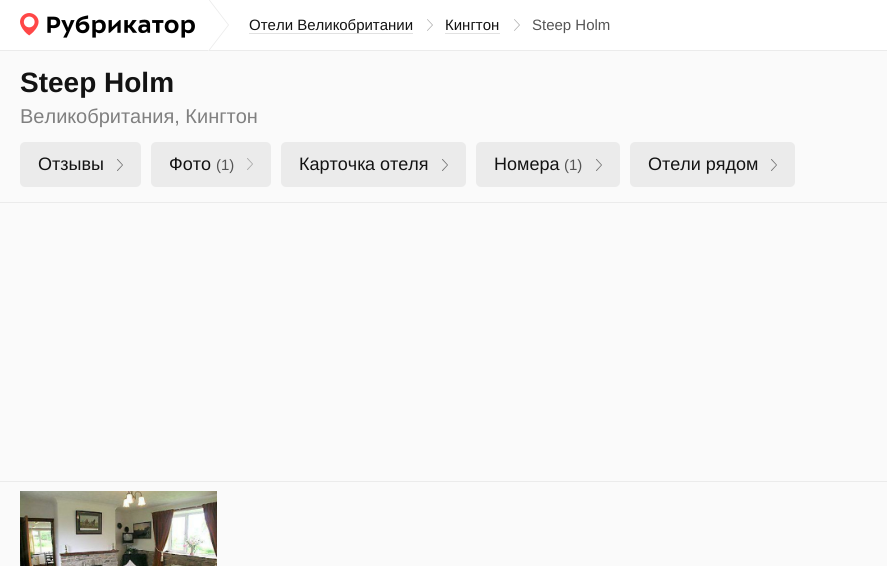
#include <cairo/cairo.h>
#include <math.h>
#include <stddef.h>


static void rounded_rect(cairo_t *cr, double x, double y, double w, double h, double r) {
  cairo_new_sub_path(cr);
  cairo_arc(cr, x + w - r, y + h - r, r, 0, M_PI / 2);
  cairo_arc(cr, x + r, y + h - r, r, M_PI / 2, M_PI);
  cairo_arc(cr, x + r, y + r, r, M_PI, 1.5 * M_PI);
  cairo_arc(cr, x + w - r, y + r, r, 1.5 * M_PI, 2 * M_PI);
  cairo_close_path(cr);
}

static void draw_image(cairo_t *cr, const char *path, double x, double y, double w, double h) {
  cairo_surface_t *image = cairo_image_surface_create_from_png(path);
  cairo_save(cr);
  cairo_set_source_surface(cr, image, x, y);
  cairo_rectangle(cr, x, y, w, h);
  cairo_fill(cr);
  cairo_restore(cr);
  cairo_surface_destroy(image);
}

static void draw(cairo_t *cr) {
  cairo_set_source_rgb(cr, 250 / 255.0, 250 / 255.0, 250 / 255.0);
  cairo_paint(cr);
  cairo_set_source_rgb(cr, 1, 1, 1);
  cairo_rectangle(cr, 0, 0, 887, 50);
  cairo_fill(cr);
  cairo_set_source_rgb(cr, 235 / 255.0, 235 / 255.0, 235 / 255.0);
  cairo_rectangle(cr, 0, 50, 887, 1);
  cairo_fill(cr);
  cairo_new_path(cr);
  cairo_move_to(cr, 209, -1);
  cairo_line_to(cr, 229, 25);
  cairo_line_to(cr, 209, 51);
  cairo_close_path(cr);
  cairo_fill(cr);
  cairo_set_source_rgb(cr, 1, 1, 1);
  cairo_new_path(cr);
  cairo_move_to(cr, 208, -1);
  cairo_line_to(cr, 228, 25);
  cairo_line_to(cr, 208, 51);
  cairo_close_path(cr);
  cairo_fill(cr);
  draw_image(cr, "images/1.png", 20, 13, 175, 25);
  cairo_set_source_rgb(cr, 225 / 255.0, 225 / 255.0, 225 / 255.0);
  cairo_rectangle(cr, 249, 33, 164, 1);
  cairo_fill(cr);
  draw_image(cr, "images/2.png", 427, 19, 6, 12);
  cairo_rectangle(cr, 445, 33, 55, 1);
  cairo_fill(cr);
  draw_image(cr, "images/2.png", 514, 19, 6, 12);
  cairo_set_source_rgb(cr, 235 / 255.0, 235 / 255.0, 235 / 255.0);
  rounded_rect(cr, 20, 142, 121, 45, 5);
  cairo_fill(cr);
  draw_image(cr, "images/3.png", 117, 159, 6, 12);
  rounded_rect(cr, 151, 142, 120, 45, 5);
  cairo_fill(cr);
  draw_image(cr, "images/4.png", 247, 158, 6, 12);
  rounded_rect(cr, 281, 142, 185, 45, 5);
  cairo_fill(cr);
  draw_image(cr, "images/3.png", 442, 159, 6, 12);
  rounded_rect(cr, 476, 142, 144, 45, 5);
  cairo_fill(cr);
  draw_image(cr, "images/3.png", 596, 159, 6, 12);
  rounded_rect(cr, 630, 142, 165, 45, 5);
  cairo_fill(cr);
  draw_image(cr, "images/3.png", 771, 159, 6, 12);
  cairo_rectangle(cr, 0, 202, 887, 1);
  cairo_fill(cr);
  cairo_rectangle(cr, 0, 481, 887, 1);
  cairo_fill(cr);
  draw_image(cr, "images/5.png", 20, 491, 197, 75);
  cairo_select_font_face(cr, "Liberation Sans", CAIRO_FONT_SLANT_NORMAL, CAIRO_FONT_WEIGHT_NORMAL);
  cairo_set_font_size(cr, 15);
  cairo_set_source_rgb(cr, 19 / 255.0, 19 / 255.0, 19 / 255.0);
  cairo_move_to(cr, 249, 30);
  cairo_show_text(cr, "Отели Великобритании");
  cairo_move_to(cr, 445, 30);
  cairo_show_text(cr, "Кингтон");
  cairo_set_source_rgb(cr, 85 / 255.0, 85 / 255.0, 85 / 255.0);
  cairo_move_to(cr, 532, 30);
  cairo_show_text(cr, "Steep Holm");
  cairo_select_font_face(cr, "Liberation Sans", CAIRO_FONT_SLANT_NORMAL, CAIRO_FONT_WEIGHT_BOLD);
  cairo_set_font_size(cr, 28);
  cairo_set_source_rgb(cr, 19 / 255.0, 19 / 255.0, 19 / 255.0);
  cairo_move_to(cr, 20, 92);
  cairo_show_text(cr, "Steep Holm");
  cairo_select_font_face(cr, "Liberation Sans", CAIRO_FONT_SLANT_NORMAL, CAIRO_FONT_WEIGHT_NORMAL);
  cairo_set_font_size(cr, 20);
  cairo_set_source_rgb(cr, 128 / 255.0, 128 / 255.0, 128 / 255.0);
  cairo_move_to(cr, 20, 123);
  cairo_show_text(cr, "Великобритания, Кингтон");
  cairo_set_font_size(cr, 18);
  cairo_set_source_rgb(cr, 19 / 255.0, 19 / 255.0, 19 / 255.0);
  cairo_move_to(cr, 38, 170);
  cairo_show_text(cr, "Отзывы");
  cairo_move_to(cr, 169, 170);
  cairo_show_text(cr, "Фото");
  cairo_set_font_size(cr, 15);
  cairo_set_source_rgb(cr, 85 / 255.0, 85 / 255.0, 85 / 255.0);
  cairo_move_to(cr, 216, 170);
  cairo_show_text(cr, "(1)");
  cairo_set_font_size(cr, 18);
  cairo_set_source_rgb(cr, 19 / 255.0, 19 / 255.0, 19 / 255.0);
  cairo_move_to(cr, 299, 170);
  cairo_show_text(cr, "Карточка отеля");
  cairo_move_to(cr, 494, 170);
  cairo_show_text(cr, "Номера");
  cairo_set_font_size(cr, 15);
  cairo_set_source_rgb(cr, 85 / 255.0, 85 / 255.0, 85 / 255.0);
  cairo_move_to(cr, 564, 170);
  cairo_show_text(cr, "(1)");
  cairo_set_font_size(cr, 18);
  cairo_set_source_rgb(cr, 19 / 255.0, 19 / 255.0, 19 / 255.0);
  cairo_move_to(cr, 648, 170);
  cairo_show_text(cr, "Отели рядом");
}

int main(void) {
  cairo_surface_t *surface = cairo_image_surface_create(CAIRO_FORMAT_RGB24, 887, 566);
  cairo_t *cr = cairo_create(surface);
  cairo_font_options_t *options = cairo_font_options_create();
  cairo_font_options_set_hint_metrics(options, CAIRO_HINT_METRICS_OFF);
  cairo_font_options_set_hint_style(options, CAIRO_HINT_STYLE_NONE);
  cairo_set_font_options(cr, options);
  cairo_set_miter_limit(cr, 4);
  draw(cr);
  cairo_surface_write_to_png(surface, "out.png");
  cairo_font_options_destroy(options);
  cairo_destroy(cr);
  cairo_surface_destroy(surface);
  return 0;
}
